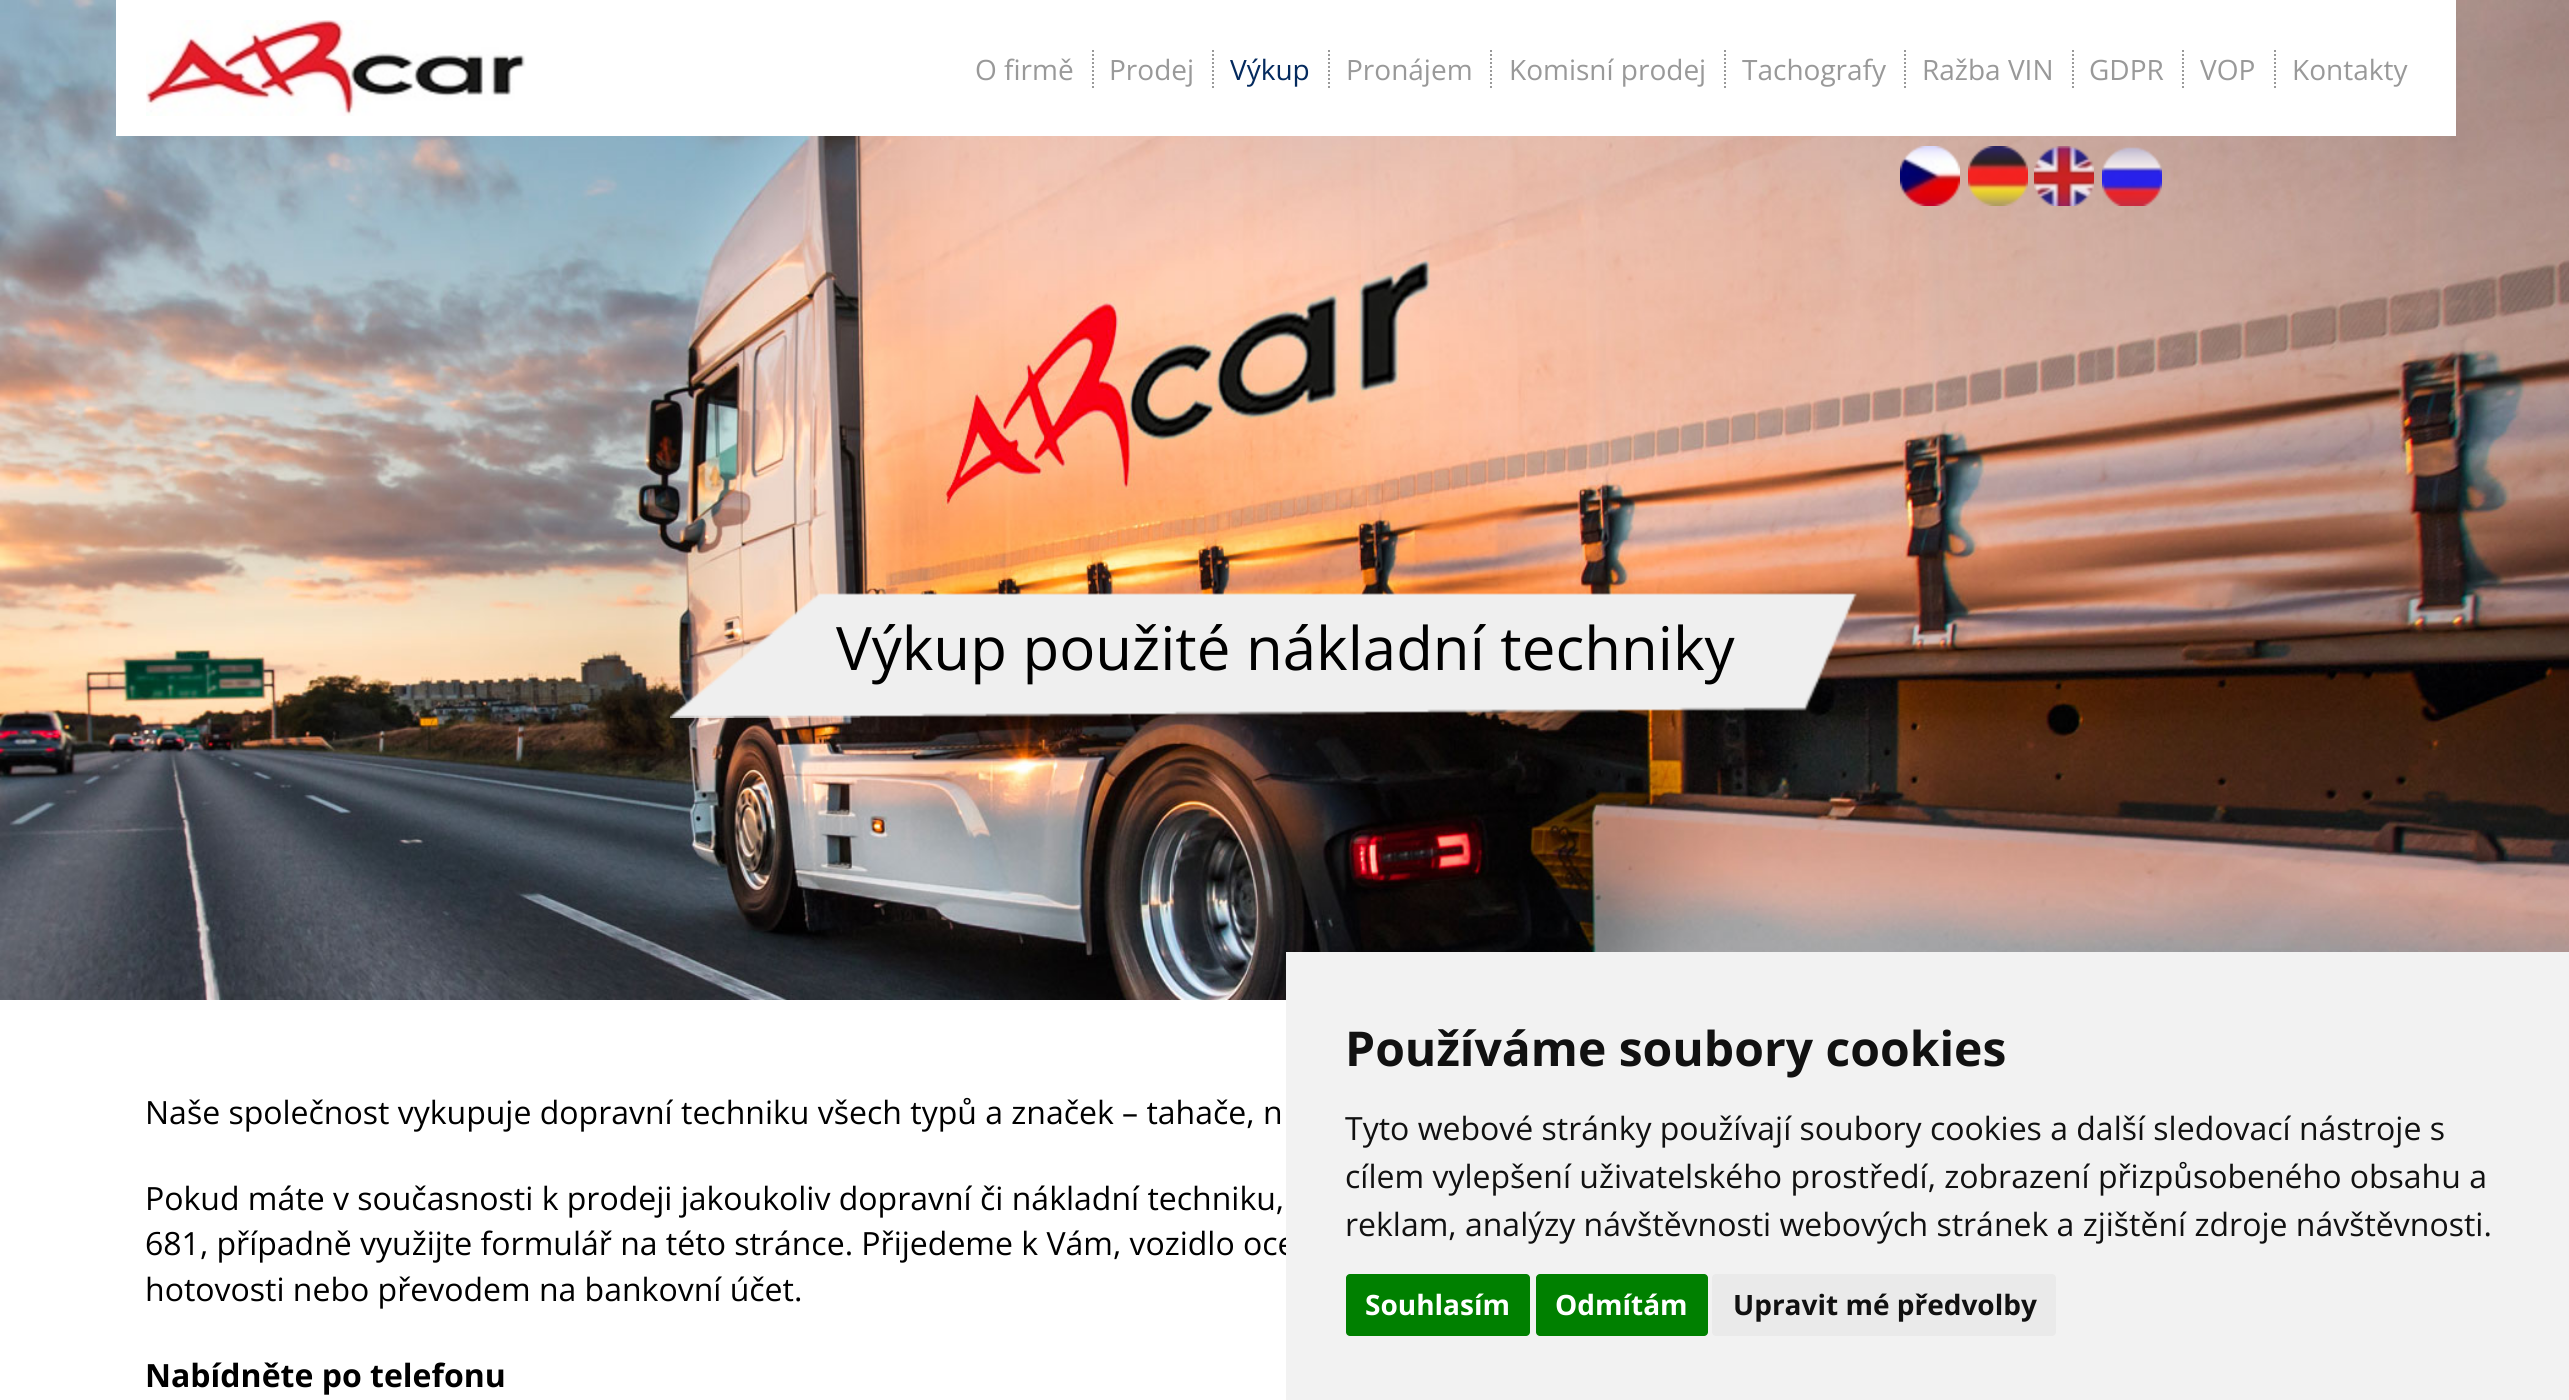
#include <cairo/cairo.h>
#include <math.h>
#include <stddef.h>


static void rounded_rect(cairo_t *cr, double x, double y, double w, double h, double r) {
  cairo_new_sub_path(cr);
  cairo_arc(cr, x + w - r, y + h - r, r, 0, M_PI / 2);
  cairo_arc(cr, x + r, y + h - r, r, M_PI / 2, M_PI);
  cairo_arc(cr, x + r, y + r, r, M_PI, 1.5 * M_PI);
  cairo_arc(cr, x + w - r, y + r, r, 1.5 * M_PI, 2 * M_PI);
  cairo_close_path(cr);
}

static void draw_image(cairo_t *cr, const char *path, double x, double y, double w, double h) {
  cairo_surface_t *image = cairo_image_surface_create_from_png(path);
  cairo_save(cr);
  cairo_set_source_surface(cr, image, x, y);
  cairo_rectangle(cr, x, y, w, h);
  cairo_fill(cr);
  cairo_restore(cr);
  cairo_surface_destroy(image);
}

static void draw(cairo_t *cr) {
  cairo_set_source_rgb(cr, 1, 1, 1);
  cairo_paint(cr);
  draw_image(cr, "images/1.png", 0, 0, 2569, 1000);
  cairo_set_source_rgb(cr, 1, 1, 1);
  cairo_rectangle(cr, 116, 0, 2340, 136);
  cairo_fill(cr);
  draw_image(cr, "images/2.png", 146, 20, 380, 96);
  cairo_new_path(cr);
  cairo_move_to(cr, 1093, 50);
  cairo_line_to(cr, 1093, 90);
  cairo_set_source_rgb(cr, 153 / 255.0, 153 / 255.0, 153 / 255.0);
  cairo_set_dash(cr, (double[]){2, 2}, 2, 0);
  cairo_stroke(cr);
  cairo_new_path(cr);
  cairo_move_to(cr, 1213, 50);
  cairo_line_to(cr, 1213, 90);
  cairo_stroke(cr);
  cairo_new_path(cr);
  cairo_move_to(cr, 1329, 50);
  cairo_line_to(cr, 1329, 90);
  cairo_stroke(cr);
  cairo_new_path(cr);
  cairo_move_to(cr, 1491, 50);
  cairo_line_to(cr, 1491, 90);
  cairo_stroke(cr);
  cairo_new_path(cr);
  cairo_move_to(cr, 1725, 50);
  cairo_line_to(cr, 1725, 90);
  cairo_stroke(cr);
  cairo_new_path(cr);
  cairo_move_to(cr, 1905, 50);
  cairo_line_to(cr, 1905, 90);
  cairo_stroke(cr);
  cairo_new_path(cr);
  cairo_move_to(cr, 2073, 50);
  cairo_line_to(cr, 2073, 90);
  cairo_stroke(cr);
  cairo_new_path(cr);
  cairo_move_to(cr, 2183, 50);
  cairo_line_to(cr, 2183, 90);
  cairo_stroke(cr);
  cairo_new_path(cr);
  cairo_move_to(cr, 2275, 50);
  cairo_line_to(cr, 2275, 90);
  cairo_stroke(cr);
  draw_image(cr, "images/3.png", 1900, 146, 60, 60);
  draw_image(cr, "images/4.png", 1968, 146, 60, 60);
  draw_image(cr, "images/5.png", 2034, 146, 60, 60);
  draw_image(cr, "images/6.png", 2102, 147, 60, 59);
  draw_image(cr, "images/7.png", 670, 593, 1187, 125);
  cairo_select_font_face(cr, "Open Sans", CAIRO_FONT_SLANT_NORMAL, CAIRO_FONT_WEIGHT_NORMAL);
  cairo_set_font_size(cr, 28);
  cairo_move_to(cr, 975, 80);
  cairo_show_text(cr, "O firmě");
  cairo_move_to(cr, 1109, 80);
  cairo_show_text(cr, "Prodej");
  cairo_set_source_rgb(cr, 4 / 255.0, 42 / 255.0, 94 / 255.0);
  cairo_move_to(cr, 1230, 80);
  cairo_show_text(cr, "Výkup");
  cairo_set_source_rgb(cr, 153 / 255.0, 153 / 255.0, 153 / 255.0);
  cairo_move_to(cr, 1346, 80);
  cairo_show_text(cr, "Pronájem");
  cairo_move_to(cr, 1509, 80);
  cairo_show_text(cr, "Komisní prodej");
  cairo_move_to(cr, 1742, 80);
  cairo_show_text(cr, "Tachografy");
  cairo_move_to(cr, 1922, 80);
  cairo_show_text(cr, "Ražba VIN");
  cairo_move_to(cr, 2089, 80);
  cairo_show_text(cr, "GDPR");
  cairo_move_to(cr, 2200, 80);
  cairo_show_text(cr, "VOP");
  cairo_move_to(cr, 2292, 80);
  cairo_show_text(cr, "Kontakty");
  cairo_set_font_size(cr, 60);
  cairo_set_source_rgb(cr, 0, 0, 0);
  cairo_move_to(cr, 836, 670);
  cairo_show_text(cr, "Výkup použité nákladní techniky");
  cairo_set_font_size(cr, 32);
  cairo_move_to(cr, 145, 1124);
  cairo_show_text(cr, "Naše společnost vykupuje dopravní techniku všech typů a značek – tahače, n");
  cairo_move_to(cr, 145, 1210);
  cairo_show_text(cr, "Pokud máte v současnosti k prodeji jakoukoliv dopravní či nákladní techniku,");
  cairo_move_to(cr, 145, 1255);
  cairo_show_text(cr, "681, případně využijte formulář na této stránce. Přijedeme k Vám, vozidlo oce");
  cairo_move_to(cr, 145, 1301);
  cairo_show_text(cr, "hotovosti nebo převodem na bankovní účet.");
  cairo_select_font_face(cr, "Open Sans", CAIRO_FONT_SLANT_NORMAL, CAIRO_FONT_WEIGHT_BOLD);
  cairo_move_to(cr, 145, 1387);
  cairo_show_text(cr, "Nabídněte po telefonu");
  cairo_set_source_rgb(cr, 242 / 255.0, 242 / 255.0, 242 / 255.0);
  cairo_rectangle(cr, 1286, 952, 1283, 448);
  cairo_fill(cr);
  cairo_set_font_size(cr, 48);
  cairo_set_source_rgb(cr, 17 / 255.0, 17 / 255.0, 17 / 255.0);
  cairo_move_to(cr, 1345, 1066);
  cairo_show_text(cr, "Používáme soubory cookies");
  cairo_select_font_face(cr, "Open Sans", CAIRO_FONT_SLANT_NORMAL, CAIRO_FONT_WEIGHT_NORMAL);
  cairo_set_font_size(cr, 32);
  cairo_move_to(cr, 1345, 1140);
  cairo_show_text(cr, "Tyto webové stránky používají soubory cookies a další sledovací nástroje s");
  cairo_move_to(cr, 1345, 1188);
  cairo_show_text(cr, "cílem vylepšení uživatelského prostředí, zobrazení přizpůsobeného obsahu a");
  cairo_move_to(cr, 1345, 1236);
  cairo_show_text(cr, "reklam, analýzy návštěvnosti webových stránek a zjištění zdroje návštěvnosti.");
  cairo_set_source_rgb(cr, 0, 128 / 255.0, 0);
  rounded_rect(cr, 1346, 1274, 184, 62, 4);
  cairo_fill(cr);
  cairo_select_font_face(cr, "Open Sans", CAIRO_FONT_SLANT_NORMAL, CAIRO_FONT_WEIGHT_BOLD);
  cairo_set_font_size(cr, 28);
  cairo_set_source_rgb(cr, 1, 1, 1);
  cairo_move_to(cr, 1365, 1315);
  cairo_show_text(cr, "Souhlasím");
  cairo_set_source_rgb(cr, 0, 128 / 255.0, 0);
  rounded_rect(cr, 1536, 1274, 172, 62, 4);
  cairo_fill(cr);
  cairo_set_source_rgb(cr, 1, 1, 1);
  cairo_move_to(cr, 1555, 1315);
  cairo_show_text(cr, "Odmítám");
  cairo_set_source_rgb(cr, 234 / 255.0, 234 / 255.0, 234 / 255.0);
  rounded_rect(cr, 1712, 1274, 344, 62, 4);
  cairo_fill(cr);
  cairo_set_source_rgb(cr, 17 / 255.0, 17 / 255.0, 17 / 255.0);
  cairo_move_to(cr, 1733, 1315);
  cairo_show_text(cr, "Upravit mé předvolby");
}

int main(void) {
  cairo_surface_t *surface = cairo_image_surface_create(CAIRO_FORMAT_RGB24, 2569, 1400);
  cairo_t *cr = cairo_create(surface);
  cairo_font_options_t *options = cairo_font_options_create();
  cairo_font_options_set_hint_metrics(options, CAIRO_HINT_METRICS_OFF);
  cairo_font_options_set_hint_style(options, CAIRO_HINT_STYLE_NONE);
  cairo_set_font_options(cr, options);
  cairo_set_miter_limit(cr, 4);
  draw(cr);
  cairo_surface_write_to_png(surface, "out.png");
  cairo_font_options_destroy(options);
  cairo_destroy(cr);
  cairo_surface_destroy(surface);
  return 0;
}
